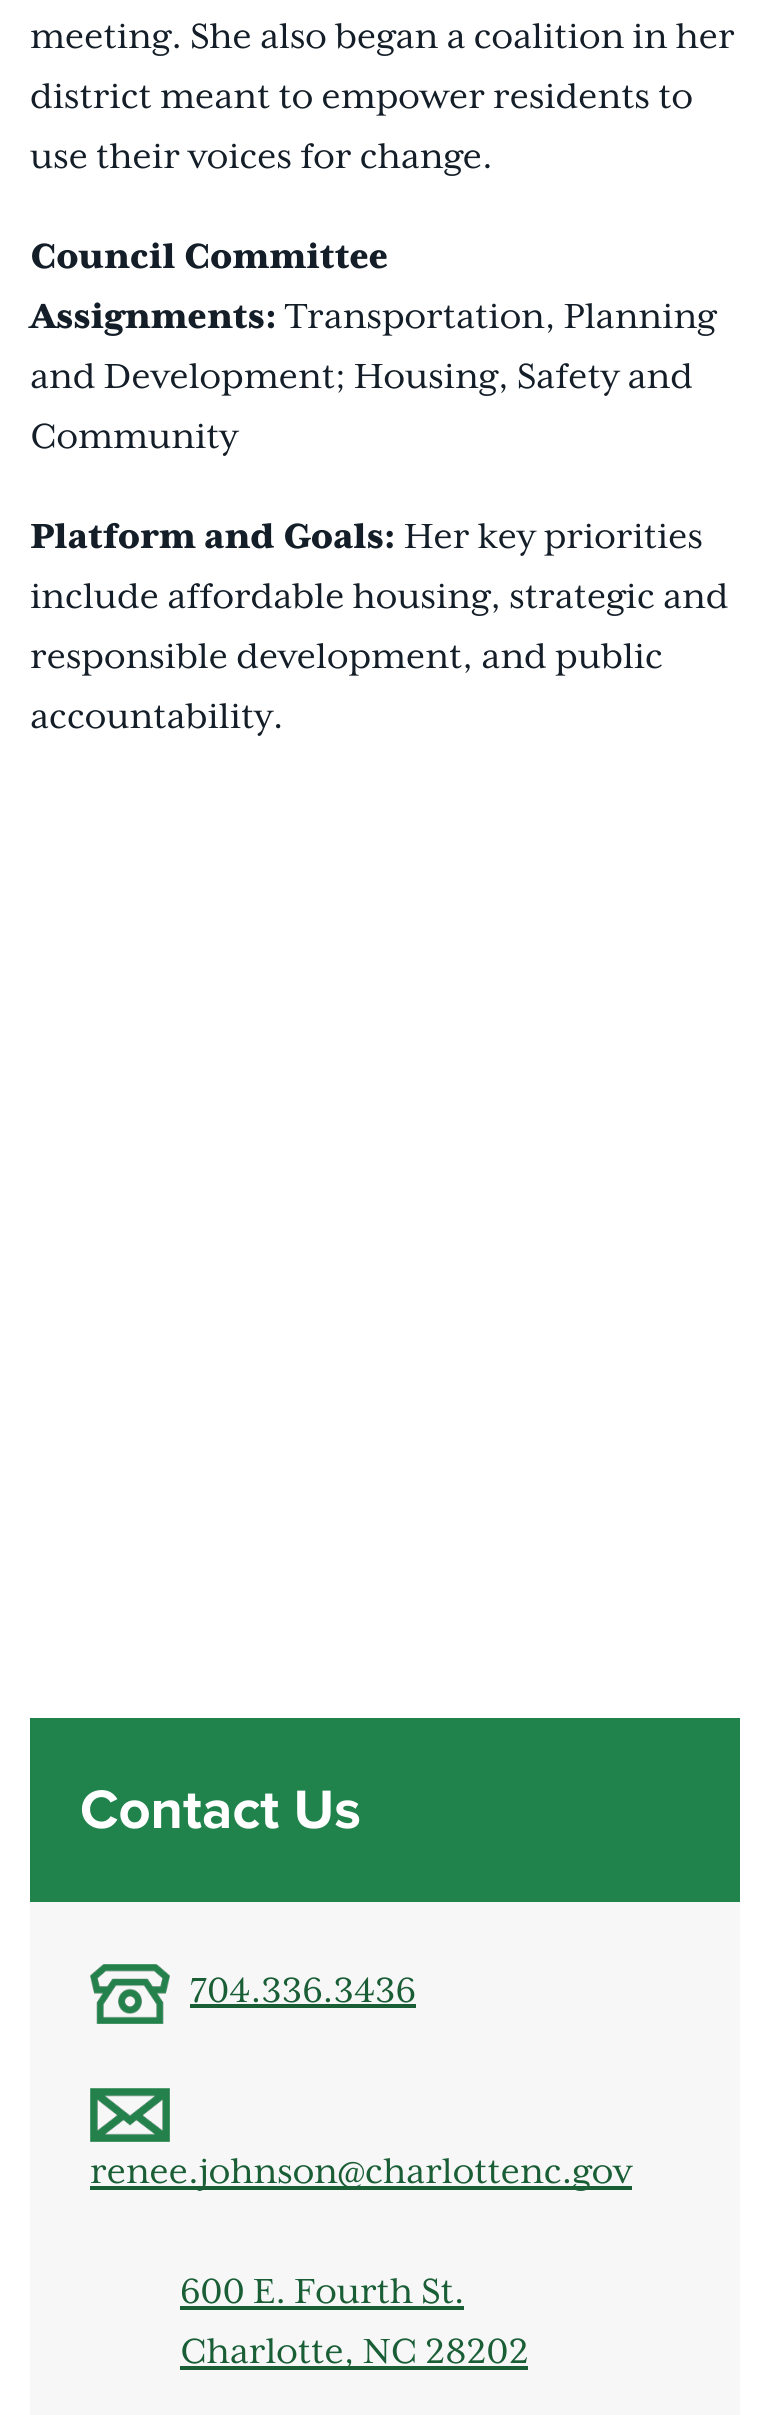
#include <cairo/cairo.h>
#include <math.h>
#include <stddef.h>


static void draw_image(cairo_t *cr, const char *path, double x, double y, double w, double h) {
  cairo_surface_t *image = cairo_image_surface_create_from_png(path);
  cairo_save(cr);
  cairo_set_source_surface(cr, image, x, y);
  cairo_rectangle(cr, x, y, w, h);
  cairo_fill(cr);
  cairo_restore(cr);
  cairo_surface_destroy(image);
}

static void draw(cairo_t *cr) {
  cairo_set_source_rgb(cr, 1, 1, 1);
  cairo_paint(cr);
  cairo_set_source_rgb(cr, 247 / 255.0, 247 / 255.0, 248 / 255.0);
  cairo_rectangle(cr, 30, 1902, 710, 513);
  cairo_fill(cr);
  cairo_set_source_rgb(cr, 33 / 255.0, 131 / 255.0, 76 / 255.0);
  cairo_rectangle(cr, 30, 1718, 710, 184);
  cairo_fill(cr);
  draw_image(cr, "images/1.png", 90, 1964, 80, 60);
  cairo_set_source_rgb(cr, 26 / 255.0, 94 / 255.0, 54 / 255.0);
  cairo_rectangle(cr, 190, 2004, 226, 4);
  cairo_fill(cr);
  draw_image(cr, "images/2.png", 90, 2088, 80, 54);
  cairo_rectangle(cr, 90, 2186, 542, 4);
  cairo_fill(cr);
  cairo_rectangle(cr, 180, 2306, 284, 4);
  cairo_fill(cr);
  cairo_rectangle(cr, 180, 2366, 348, 4);
  cairo_fill(cr);
  cairo_select_font_face(cr, "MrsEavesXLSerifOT", CAIRO_FONT_SLANT_NORMAL, CAIRO_FONT_WEIGHT_NORMAL);
  cairo_set_font_size(cr, 40);
  cairo_set_source_rgb(cr, 20 / 255.0, 30 / 255.0, 40 / 255.0);
  cairo_move_to(cr, 30, 48);
  cairo_show_text(cr, "meeting. She also began a coalition in her");
  cairo_move_to(cr, 30, 108);
  cairo_show_text(cr, "district meant to empower residents to");
  cairo_move_to(cr, 30, 168);
  cairo_show_text(cr, "use their voices for change.");
  cairo_select_font_face(cr, "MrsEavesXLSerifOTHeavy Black", CAIRO_FONT_SLANT_NORMAL, CAIRO_FONT_WEIGHT_NORMAL);
  cairo_move_to(cr, 30, 268);
  cairo_show_text(cr, "Council Committee");
  cairo_move_to(cr, 30, 328);
  cairo_show_text(cr, "Assignments:");
  cairo_select_font_face(cr, "MrsEavesXLSerifOT", CAIRO_FONT_SLANT_NORMAL, CAIRO_FONT_WEIGHT_NORMAL);
  cairo_move_to(cr, 285, 328);
  cairo_show_text(cr, "Transportation, Planning");
  cairo_move_to(cr, 30, 388);
  cairo_show_text(cr, "and Development; Housing, Safety and");
  cairo_move_to(cr, 30, 448);
  cairo_show_text(cr, "Community");
  cairo_select_font_face(cr, "MrsEavesXLSerifOTHeavy Black", CAIRO_FONT_SLANT_NORMAL, CAIRO_FONT_WEIGHT_NORMAL);
  cairo_move_to(cr, 30, 548);
  cairo_show_text(cr, "Platform and Goals:");
  cairo_select_font_face(cr, "MrsEavesXLSerifOT", CAIRO_FONT_SLANT_NORMAL, CAIRO_FONT_WEIGHT_NORMAL);
  cairo_move_to(cr, 404, 548);
  cairo_show_text(cr, "Her key priorities");
  cairo_move_to(cr, 30, 608);
  cairo_show_text(cr, "include affordable housing, strategic and");
  cairo_move_to(cr, 30, 668);
  cairo_show_text(cr, "responsible development, and public");
  cairo_move_to(cr, 30, 728);
  cairo_show_text(cr, "accountability.");
  cairo_select_font_face(cr, "Proxima Nova", CAIRO_FONT_SLANT_NORMAL, CAIRO_FONT_WEIGHT_BOLD);
  cairo_set_font_size(cr, 56);
  cairo_set_source_rgb(cr, 1, 1, 1);
  cairo_move_to(cr, 80, 1828);
  cairo_show_text(cr, "Contact Us");
  cairo_select_font_face(cr, "MrsEavesXLSerifOT", CAIRO_FONT_SLANT_NORMAL, CAIRO_FONT_WEIGHT_NORMAL);
  cairo_set_font_size(cr, 40);
  cairo_set_source_rgb(cr, 26 / 255.0, 94 / 255.0, 54 / 255.0);
  cairo_move_to(cr, 190, 2002);
  cairo_show_text(cr, "704.336.3436");
  cairo_move_to(cr, 90, 2183);
  cairo_show_text(cr, "renee.johnson@charlottenc.gov");
  cairo_move_to(cr, 180, 2303);
  cairo_show_text(cr, "600 E. Fourth St.");
  cairo_move_to(cr, 180, 2363);
  cairo_show_text(cr, "Charlotte, NC 28202");
}

int main(void) {
  cairo_surface_t *surface = cairo_image_surface_create(CAIRO_FORMAT_RGB24, 770, 2415);
  cairo_t *cr = cairo_create(surface);
  cairo_font_options_t *options = cairo_font_options_create();
  cairo_font_options_set_hint_metrics(options, CAIRO_HINT_METRICS_OFF);
  cairo_font_options_set_hint_style(options, CAIRO_HINT_STYLE_NONE);
  cairo_set_font_options(cr, options);
  cairo_set_miter_limit(cr, 4);
  draw(cr);
  cairo_surface_write_to_png(surface, "out.png");
  cairo_font_options_destroy(options);
  cairo_destroy(cr);
  cairo_surface_destroy(surface);
  return 0;
}
